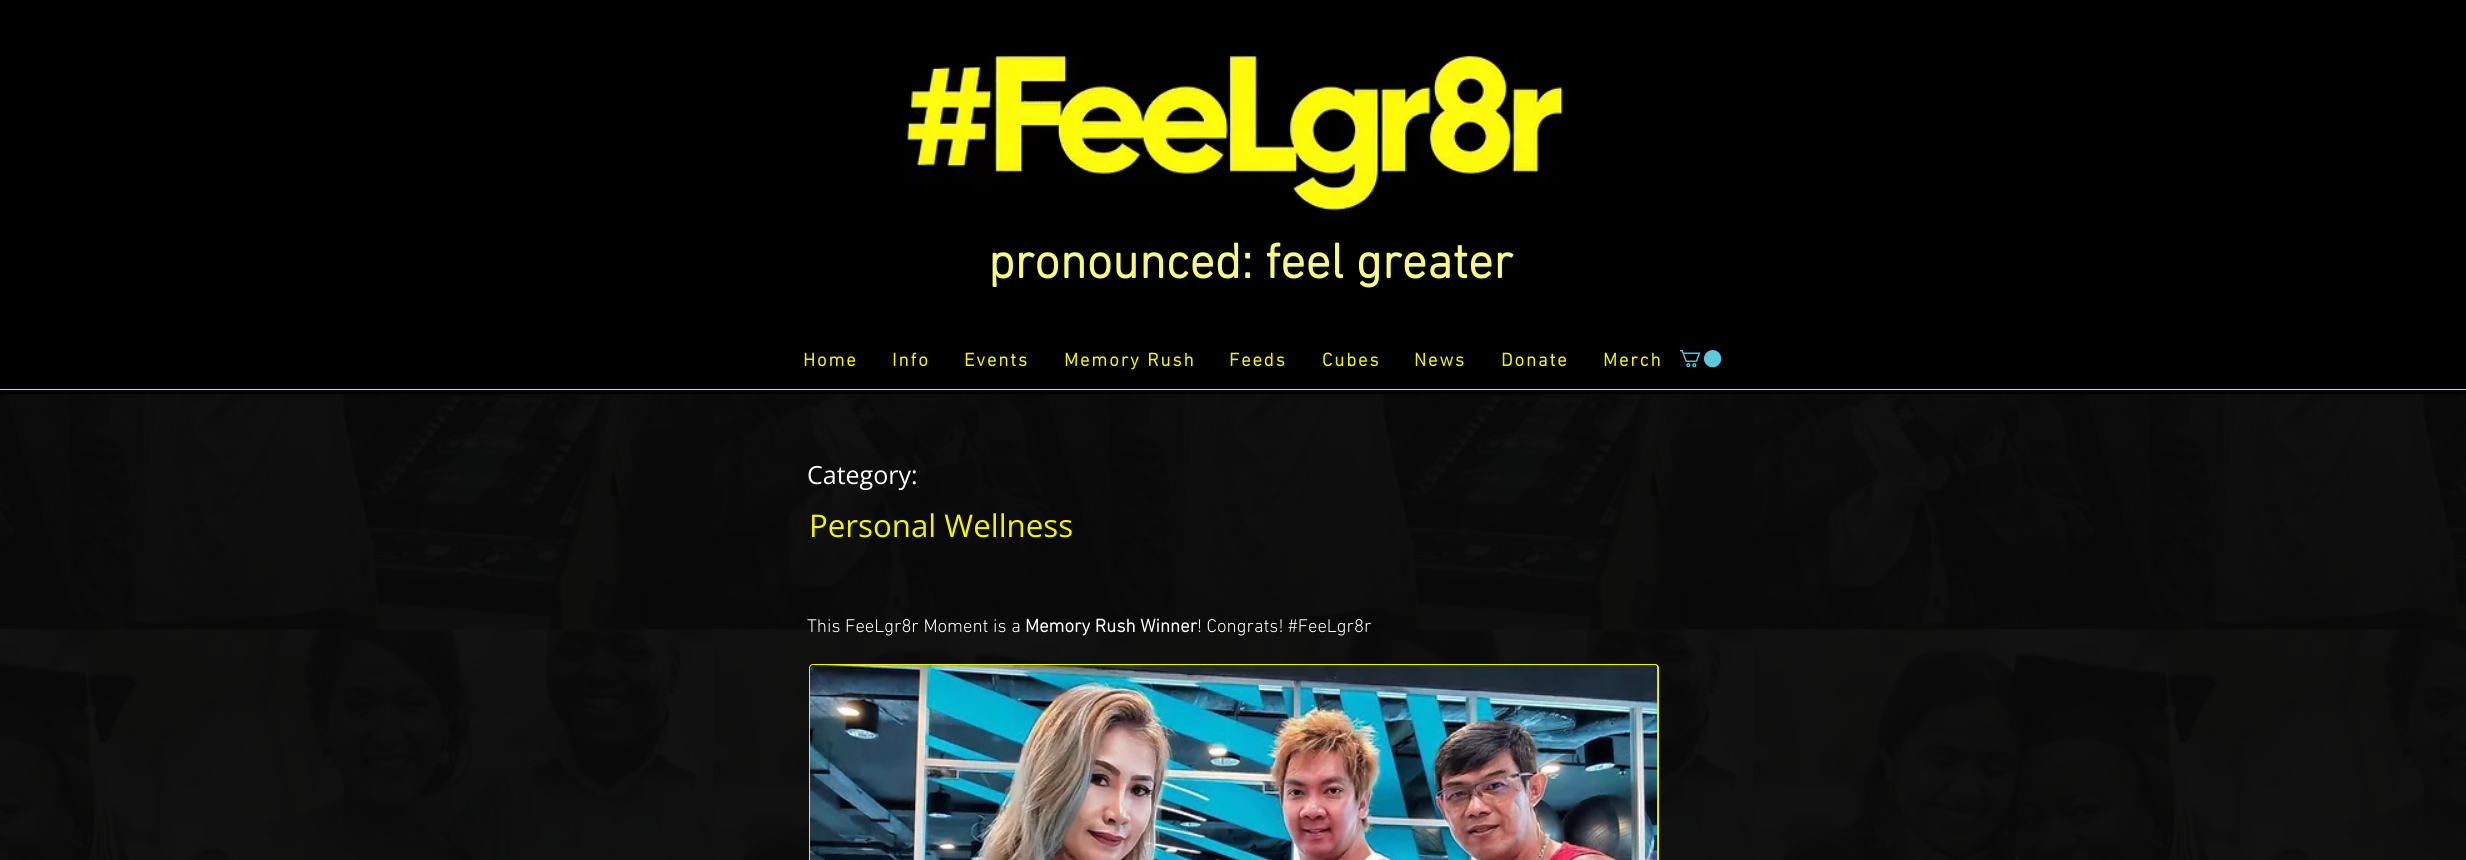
#include <cairo/cairo.h>
#include <math.h>
#include <stddef.h>


static void draw_spaced(cairo_t *cr, double x, double y, const char *s, double letter, double word) {
  cairo_move_to(cr, x, y);
  while (*s) {
    char ch[5] = {0};
    int n = 0;
    do ch[n++] = *s++; while ((*s & 0xC0) == 0x80);
    cairo_show_text(cr, ch);
    cairo_rel_move_to(cr, letter + word * (*ch == ' '), 0);
  }
}

static void rounded_rect(cairo_t *cr, double x, double y, double w, double h, double r) {
  cairo_new_sub_path(cr);
  cairo_arc(cr, x + w - r, y + h - r, r, 0, M_PI / 2);
  cairo_arc(cr, x + r, y + h - r, r, M_PI / 2, M_PI);
  cairo_arc(cr, x + r, y + r, r, M_PI, 1.5 * M_PI);
  cairo_arc(cr, x + w - r, y + r, r, 1.5 * M_PI, 2 * M_PI);
  cairo_close_path(cr);
}

static void draw_image(cairo_t *cr, const char *path, double x, double y, double w, double h) {
  cairo_surface_t *image = cairo_image_surface_create_from_png(path);
  cairo_save(cr);
  cairo_set_source_surface(cr, image, x, y);
  cairo_rectangle(cr, x, y, w, h);
  cairo_fill(cr);
  cairo_restore(cr);
  cairo_surface_destroy(image);
}

static void draw(cairo_t *cr) {
  cairo_set_source_rgb(cr, 1, 1, 1);
  cairo_paint(cr);
  cairo_set_source_rgb(cr, 0, 0, 0);
  cairo_rectangle(cr, 0, 0, 2466, 394);
  cairo_fill(cr);
  draw_image(cr, "images/1.png", 899, 52, 670, 161);
  draw_image(cr, "images/2.png", 1680, 350, 42, 18);
  cairo_set_source_rgb(cr, 247 / 255.0, 235 / 255.0, 5 / 255.0);
  cairo_rectangle(cr, 0, 389, 2466, 1);
  cairo_fill(cr);
  draw_image(cr, "images/4.png", 0, 394, 2466, 466);
  cairo_set_source_rgba(cr, 0, 0, 0, 0.8);
  cairo_rectangle(cr, 0, 394, 2466, 466);
  cairo_fill(cr);
  cairo_set_source_rgb(cr, 241 / 255.0, 245 / 255.0, 2 / 255.0);
  rounded_rect(cr, 809.5, 664.5, 849, 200, 3.5);
  cairo_fill_preserve(cr);
  cairo_set_line_width(cr, 1);
  cairo_stroke(cr);
  draw_image(cr, "images/3.png", 810, 665, 848, 195);
  cairo_select_font_face(cr, "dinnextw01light", CAIRO_FONT_SLANT_NORMAL, CAIRO_FONT_WEIGHT_BOLD);
  cairo_set_font_size(cr, 50);
  cairo_set_source_rgb(cr, 247 / 255.0, 250 / 255.0, 129 / 255.0);
  cairo_move_to(cr, 988, 278);
  cairo_show_text(cr, "pronounced: feel greater");
  cairo_set_font_size(cr, 18.75);
  cairo_set_source_rgb(cr, 241 / 255.0, 245 / 255.0, 2 / 255.0);
  draw_spaced(cr, 803, 366, "Home", 1.9, 0);
  draw_spaced(cr, 892, 366, "Info", 1.9, 0);
  draw_spaced(cr, 964, 366, "Events", 1.9, 0);
  draw_spaced(cr, 1064, 366, "Memory Rush", 1.9, 0);
  draw_spaced(cr, 1229, 366, "Feeds", 1.9, 0);
  draw_spaced(cr, 1322, 366, "Cubes", 1.9, 0);
  draw_spaced(cr, 1414, 366, "News", 1.9, 0);
  draw_spaced(cr, 1501, 366, "Donate", 1.9, 0);
  draw_spaced(cr, 1603, 366, "Merch", 1.9, 0);
  cairo_select_font_face(cr, "Open Sans", CAIRO_FONT_SLANT_NORMAL, CAIRO_FONT_WEIGHT_NORMAL);
  cairo_set_font_size(cr, 25);
  cairo_set_source_rgb(cr, 1, 1, 1);
  cairo_move_to(cr, 807, 484);
  cairo_show_text(cr, "Category:");
  cairo_set_font_size(cr, 31.25);
  cairo_set_source_rgb(cr, 241 / 255.0, 245 / 255.0, 2 / 255.0);
  cairo_move_to(cr, 809, 537);
  cairo_show_text(cr, "Personal Wellness");
  cairo_select_font_face(cr, "dinnextw01light Light", CAIRO_FONT_SLANT_NORMAL, CAIRO_FONT_WEIGHT_NORMAL);
  cairo_set_font_size(cr, 18.75);
  cairo_set_source_rgb(cr, 1, 1, 1);
  cairo_move_to(cr, 807, 632);
  cairo_show_text(cr, "This FeeLgr8r Moment is a");
  cairo_select_font_face(cr, "dinnextw01light", CAIRO_FONT_SLANT_NORMAL, CAIRO_FONT_WEIGHT_BOLD);
  cairo_move_to(cr, 1025, 632);
  cairo_show_text(cr, "Memory Rush Winner");
  cairo_select_font_face(cr, "dinnextw01light Light", CAIRO_FONT_SLANT_NORMAL, CAIRO_FONT_WEIGHT_NORMAL);
  cairo_move_to(cr, 1197, 632);
  cairo_show_text(cr, "! Congrats! #FeeLgr8r");
}

int main(void) {
  cairo_surface_t *surface = cairo_image_surface_create(CAIRO_FORMAT_RGB24, 2466, 860);
  cairo_t *cr = cairo_create(surface);
  cairo_font_options_t *options = cairo_font_options_create();
  cairo_font_options_set_hint_metrics(options, CAIRO_HINT_METRICS_OFF);
  cairo_font_options_set_hint_style(options, CAIRO_HINT_STYLE_NONE);
  cairo_set_font_options(cr, options);
  cairo_set_miter_limit(cr, 4);
  draw(cr);
  cairo_surface_write_to_png(surface, "out.png");
  cairo_font_options_destroy(options);
  cairo_destroy(cr);
  cairo_surface_destroy(surface);
  return 0;
}
